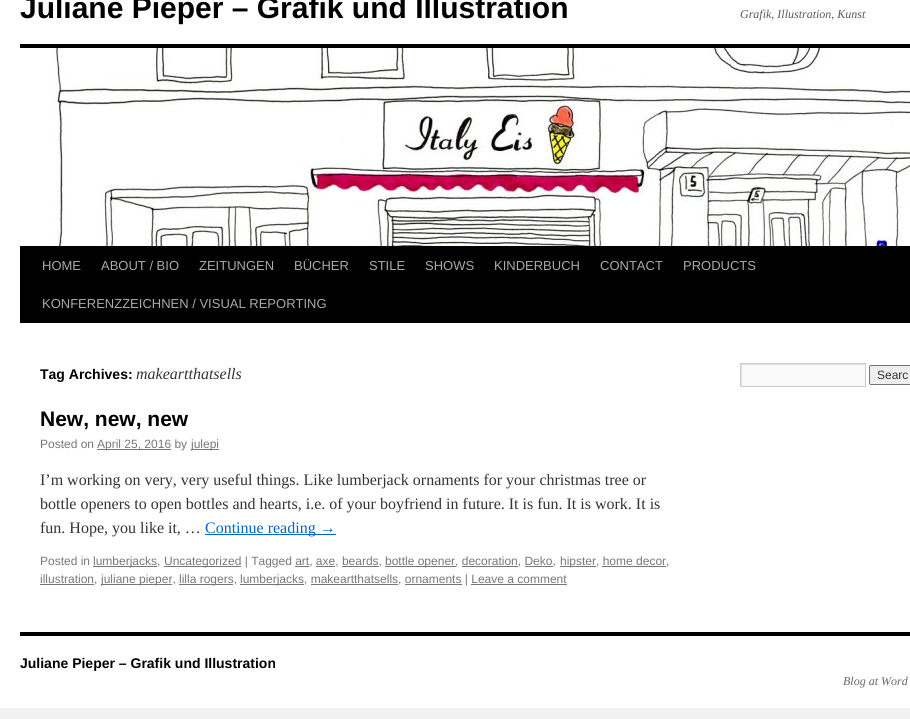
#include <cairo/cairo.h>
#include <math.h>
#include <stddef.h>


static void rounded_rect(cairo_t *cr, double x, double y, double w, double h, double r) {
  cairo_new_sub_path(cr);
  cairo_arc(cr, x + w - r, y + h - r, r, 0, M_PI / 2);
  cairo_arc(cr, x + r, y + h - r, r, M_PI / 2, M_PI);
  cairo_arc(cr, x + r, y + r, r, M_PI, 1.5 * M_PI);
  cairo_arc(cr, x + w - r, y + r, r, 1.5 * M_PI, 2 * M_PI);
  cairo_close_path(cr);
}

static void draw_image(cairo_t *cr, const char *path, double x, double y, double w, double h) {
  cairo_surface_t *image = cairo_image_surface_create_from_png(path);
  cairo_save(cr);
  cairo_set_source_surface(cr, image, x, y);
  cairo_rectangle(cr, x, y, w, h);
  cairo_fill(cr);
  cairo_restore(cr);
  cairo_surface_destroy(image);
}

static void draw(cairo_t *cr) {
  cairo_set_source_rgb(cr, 241 / 255.0, 241 / 255.0, 241 / 255.0);
  cairo_paint(cr);
  cairo_set_source_rgb(cr, 1, 1, 1);
  cairo_rectangle(cr, 0, 0, 910, 708);
  cairo_fill(cr);
  cairo_set_source_rgb(cr, 0, 0, 0);
  cairo_rectangle(cr, 20, 44, 890, 4);
  cairo_fill(cr);
  cairo_rectangle(cr, 20, 246, 890, 77);
  cairo_fill(cr);
  draw_image(cr, "images/1.png", 52, 48, 858, 198);
  cairo_set_source_rgb(cr, 119 / 255.0, 119 / 255.0, 119 / 255.0);
  cairo_rectangle(cr, 97, 449, 74, 1);
  cairo_fill(cr);
  cairo_rectangle(cr, 191, 449, 28, 1);
  cairo_fill(cr);
  cairo_set_source_rgb(cr, 0, 102 / 255.0, 204 / 255.0);
  cairo_rectangle(cr, 205, 534, 131, 1);
  cairo_fill(cr);
  cairo_set_source_rgb(cr, 119 / 255.0, 119 / 255.0, 119 / 255.0);
  cairo_rectangle(cr, 93, 566, 64, 1);
  cairo_fill(cr);
  cairo_rectangle(cr, 164, 566, 77, 1);
  cairo_fill(cr);
  cairo_rectangle(cr, 342, 566, 37, 1);
  cairo_fill(cr);
  cairo_rectangle(cr, 385, 566, 71, 1);
  cairo_fill(cr);
  cairo_rectangle(cr, 462, 566, 56, 1);
  cairo_fill(cr);
  cairo_rectangle(cr, 525, 566, 28, 1);
  cairo_fill(cr);
  cairo_rectangle(cr, 560, 566, 36, 1);
  cairo_fill(cr);
  cairo_rectangle(cr, 602, 566, 64, 1);
  cairo_fill(cr);
  cairo_rectangle(cr, 40, 584, 54, 1);
  cairo_fill(cr);
  cairo_rectangle(cr, 101, 584, 71, 1);
  cairo_fill(cr);
  cairo_rectangle(cr, 179, 584, 54, 1);
  cairo_fill(cr);
  cairo_rectangle(cr, 295, 566, 14, 1);
  cairo_fill(cr);
  cairo_rectangle(cr, 316, 566, 19, 1);
  cairo_fill(cr);
  cairo_rectangle(cr, 240, 584, 64, 1);
  cairo_fill(cr);
  cairo_rectangle(cr, 311, 584, 87, 1);
  cairo_fill(cr);
  cairo_rectangle(cr, 405, 584, 57, 1);
  cairo_fill(cr);
  cairo_rectangle(cr, 471, 584, 96, 1);
  cairo_fill(cr);
  cairo_set_source_rgb(cr, 249 / 255.0, 249 / 255.0, 249 / 255.0);
  cairo_rectangle(cr, 742, 365, 123, 21);
  cairo_fill(cr);
  cairo_save(cr);
  cairo_rectangle(cr, 741, 364, 124, 22);
  cairo_clip(cr);
  cairo_set_source_rgb(cr, 224 / 255.0, 224 / 255.0, 224 / 255.0);
  cairo_set_fill_rule(cr, CAIRO_FILL_RULE_EVEN_ODD);
  cairo_new_path(cr);
  cairo_move_to(cr, 642, 265);
  cairo_line_to(cr, 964, 265);
  cairo_line_to(cr, 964, 485);
  cairo_line_to(cr, 642, 485);
  cairo_close_path(cr);
  cairo_move_to(cr, 742, 365);
  cairo_line_to(cr, 866, 365);
  cairo_line_to(cr, 866, 387);
  cairo_line_to(cr, 742, 387);
  cairo_close_path(cr);
  cairo_fill(cr);
  cairo_restore(cr);
  cairo_rectangle(cr, 740.5, 363.5, 125, 23);
  cairo_set_source_rgb(cr, 204 / 255.0, 204 / 255.0, 204 / 255.0);
  cairo_set_line_width(cr, 1);
  cairo_stroke(cr);
  cairo_set_source_rgb(cr, 239 / 255.0, 239 / 255.0, 239 / 255.0);
  rounded_rect(cr, 869.5, 365.5, 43, 19, 1.5);
  cairo_fill_preserve(cr);
  cairo_set_source_rgb(cr, 118 / 255.0, 118 / 255.0, 118 / 255.0);
  cairo_stroke(cr);
  cairo_set_source_rgb(cr, 0, 0, 0);
  cairo_rectangle(cr, 20, 632, 890, 4);
  cairo_fill(cr);
  cairo_select_font_face(cr, "Liberation Sans", CAIRO_FONT_SLANT_NORMAL, CAIRO_FONT_WEIGHT_BOLD);
  cairo_set_font_size(cr, 30);
  cairo_move_to(cr, 20, 18);
  cairo_show_text(cr, "Juliane Pieper – Grafik und Illustration");
  cairo_select_font_face(cr, "Liberation Serif", CAIRO_FONT_SLANT_ITALIC, CAIRO_FONT_WEIGHT_NORMAL);
  cairo_set_font_size(cr, 12);
  cairo_set_source_rgb(cr, 89 / 255.0, 89 / 255.0, 89 / 255.0);
  cairo_move_to(cr, 740, 18);
  cairo_show_text(cr, "Grafik, Illustration, Kunst");
  cairo_select_font_face(cr, "Liberation Sans", CAIRO_FONT_SLANT_NORMAL, CAIRO_FONT_WEIGHT_NORMAL);
  cairo_set_font_size(cr, 13);
  cairo_set_source_rgb(cr, 170 / 255.0, 170 / 255.0, 170 / 255.0);
  cairo_move_to(cr, 42, 270);
  cairo_show_text(cr, "HOME");
  cairo_move_to(cr, 101, 270);
  cairo_show_text(cr, "ABOUT / BIO");
  cairo_move_to(cr, 199, 270);
  cairo_show_text(cr, "ZEITUNGEN");
  cairo_move_to(cr, 294, 270);
  cairo_show_text(cr, "BÜCHER");
  cairo_move_to(cr, 369, 270);
  cairo_show_text(cr, "STILE");
  cairo_move_to(cr, 425, 270);
  cairo_show_text(cr, "SHOWS");
  cairo_move_to(cr, 494, 270);
  cairo_show_text(cr, "KINDERBUCH");
  cairo_move_to(cr, 600, 270);
  cairo_show_text(cr, "CONTACT");
  cairo_move_to(cr, 683, 270);
  cairo_show_text(cr, "PRODUCTS");
  cairo_move_to(cr, 42, 308);
  cairo_show_text(cr, "KONFERENZZEICHNEN / VISUAL REPORTING");
  cairo_select_font_face(cr, "Liberation Sans", CAIRO_FONT_SLANT_NORMAL, CAIRO_FONT_WEIGHT_BOLD);
  cairo_set_font_size(cr, 14);
  cairo_set_source_rgb(cr, 0, 0, 0);
  cairo_move_to(cr, 40, 379);
  cairo_show_text(cr, "Tag Archives:");
  cairo_select_font_face(cr, "Liberation Serif", CAIRO_FONT_SLANT_ITALIC, CAIRO_FONT_WEIGHT_NORMAL);
  cairo_set_font_size(cr, 16);
  cairo_set_source_rgb(cr, 51 / 255.0, 51 / 255.0, 51 / 255.0);
  cairo_move_to(cr, 136, 379);
  cairo_show_text(cr, "makeartthatsells");
  cairo_select_font_face(cr, "Liberation Sans", CAIRO_FONT_SLANT_NORMAL, CAIRO_FONT_WEIGHT_BOLD);
  cairo_set_font_size(cr, 21);
  cairo_set_source_rgb(cr, 0, 0, 0);
  cairo_move_to(cr, 40, 426);
  cairo_show_text(cr, "New, new, new");
  cairo_select_font_face(cr, "Liberation Sans", CAIRO_FONT_SLANT_NORMAL, CAIRO_FONT_WEIGHT_NORMAL);
  cairo_set_font_size(cr, 12);
  cairo_set_source_rgb(cr, 119 / 255.0, 119 / 255.0, 119 / 255.0);
  cairo_move_to(cr, 40, 448);
  cairo_show_text(cr, "Posted on");
  cairo_move_to(cr, 97, 448);
  cairo_show_text(cr, "April 25, 2016 by");
  cairo_move_to(cr, 191, 448);
  cairo_show_text(cr, "julepi");
  cairo_select_font_face(cr, "Liberation Serif", CAIRO_FONT_SLANT_NORMAL, CAIRO_FONT_WEIGHT_NORMAL);
  cairo_set_font_size(cr, 16);
  cairo_set_source_rgb(cr, 51 / 255.0, 51 / 255.0, 51 / 255.0);
  cairo_move_to(cr, 40, 485);
  cairo_show_text(cr, "I’m working on very, very useful things. Like lumberjack ornaments for your christmas tree or");
  cairo_move_to(cr, 40, 509);
  cairo_show_text(cr, "bottle openers to open bottles and hearts, i.e. of your boyfriend in future. It is fun. It is work. It is");
  cairo_move_to(cr, 40, 533);
  cairo_show_text(cr, "fun. Hope, you like it, …");
  cairo_set_source_rgb(cr, 0, 102 / 255.0, 204 / 255.0);
  cairo_move_to(cr, 205, 533);
  cairo_show_text(cr, "Continue reading →");
  cairo_select_font_face(cr, "Liberation Sans", CAIRO_FONT_SLANT_NORMAL, CAIRO_FONT_WEIGHT_NORMAL);
  cairo_set_font_size(cr, 12);
  cairo_set_source_rgb(cr, 119 / 255.0, 119 / 255.0, 119 / 255.0);
  cairo_move_to(cr, 40, 565);
  cairo_show_text(cr, "Posted in");
  cairo_move_to(cr, 93, 565);
  cairo_show_text(cr, "lumberjacks,");
  cairo_move_to(cr, 164, 565);
  cairo_show_text(cr, "Uncategorized | Tagged art, axe, beards,");
  cairo_move_to(cr, 385, 565);
  cairo_show_text(cr, "bottle opener, decoration, Deko,");
  cairo_move_to(cr, 560, 565);
  cairo_show_text(cr, "hipster, home decor,");
  cairo_move_to(cr, 40, 583);
  cairo_show_text(cr, "illustration,");
  cairo_move_to(cr, 101, 583);
  cairo_show_text(cr, "juliane pieper,");
  cairo_move_to(cr, 179, 583);
  cairo_show_text(cr, "lilla rogers,");
  cairo_move_to(cr, 240, 583);
  cairo_show_text(cr, "lumberjacks, makeartthatsells, ornaments | Leave a comment");
  cairo_set_source_rgb(cr, 51 / 255.0, 51 / 255.0, 51 / 255.0);
  cairo_move_to(cr, 877, 379);
  cairo_show_text(cr, "Searc");
  cairo_select_font_face(cr, "Liberation Sans", CAIRO_FONT_SLANT_NORMAL, CAIRO_FONT_WEIGHT_BOLD);
  cairo_set_font_size(cr, 14);
  cairo_set_source_rgb(cr, 0, 0, 0);
  cairo_move_to(cr, 20, 668);
  cairo_show_text(cr, "Juliane Pieper – Grafik und Illustration");
  cairo_select_font_face(cr, "Liberation Serif", CAIRO_FONT_SLANT_ITALIC, CAIRO_FONT_WEIGHT_NORMAL);
  cairo_set_font_size(cr, 12);
  cairo_set_source_rgb(cr, 102 / 255.0, 102 / 255.0, 102 / 255.0);
  cairo_move_to(cr, 843, 685);
  cairo_show_text(cr, "Blog at Word");
}

int main(void) {
  cairo_surface_t *surface = cairo_image_surface_create(CAIRO_FORMAT_RGB24, 910, 719);
  cairo_t *cr = cairo_create(surface);
  cairo_font_options_t *options = cairo_font_options_create();
  cairo_font_options_set_hint_metrics(options, CAIRO_HINT_METRICS_OFF);
  cairo_font_options_set_hint_style(options, CAIRO_HINT_STYLE_NONE);
  cairo_set_font_options(cr, options);
  cairo_set_miter_limit(cr, 4);
  draw(cr);
  cairo_surface_write_to_png(surface, "out.png");
  cairo_font_options_destroy(options);
  cairo_destroy(cr);
  cairo_surface_destroy(surface);
  return 0;
}
